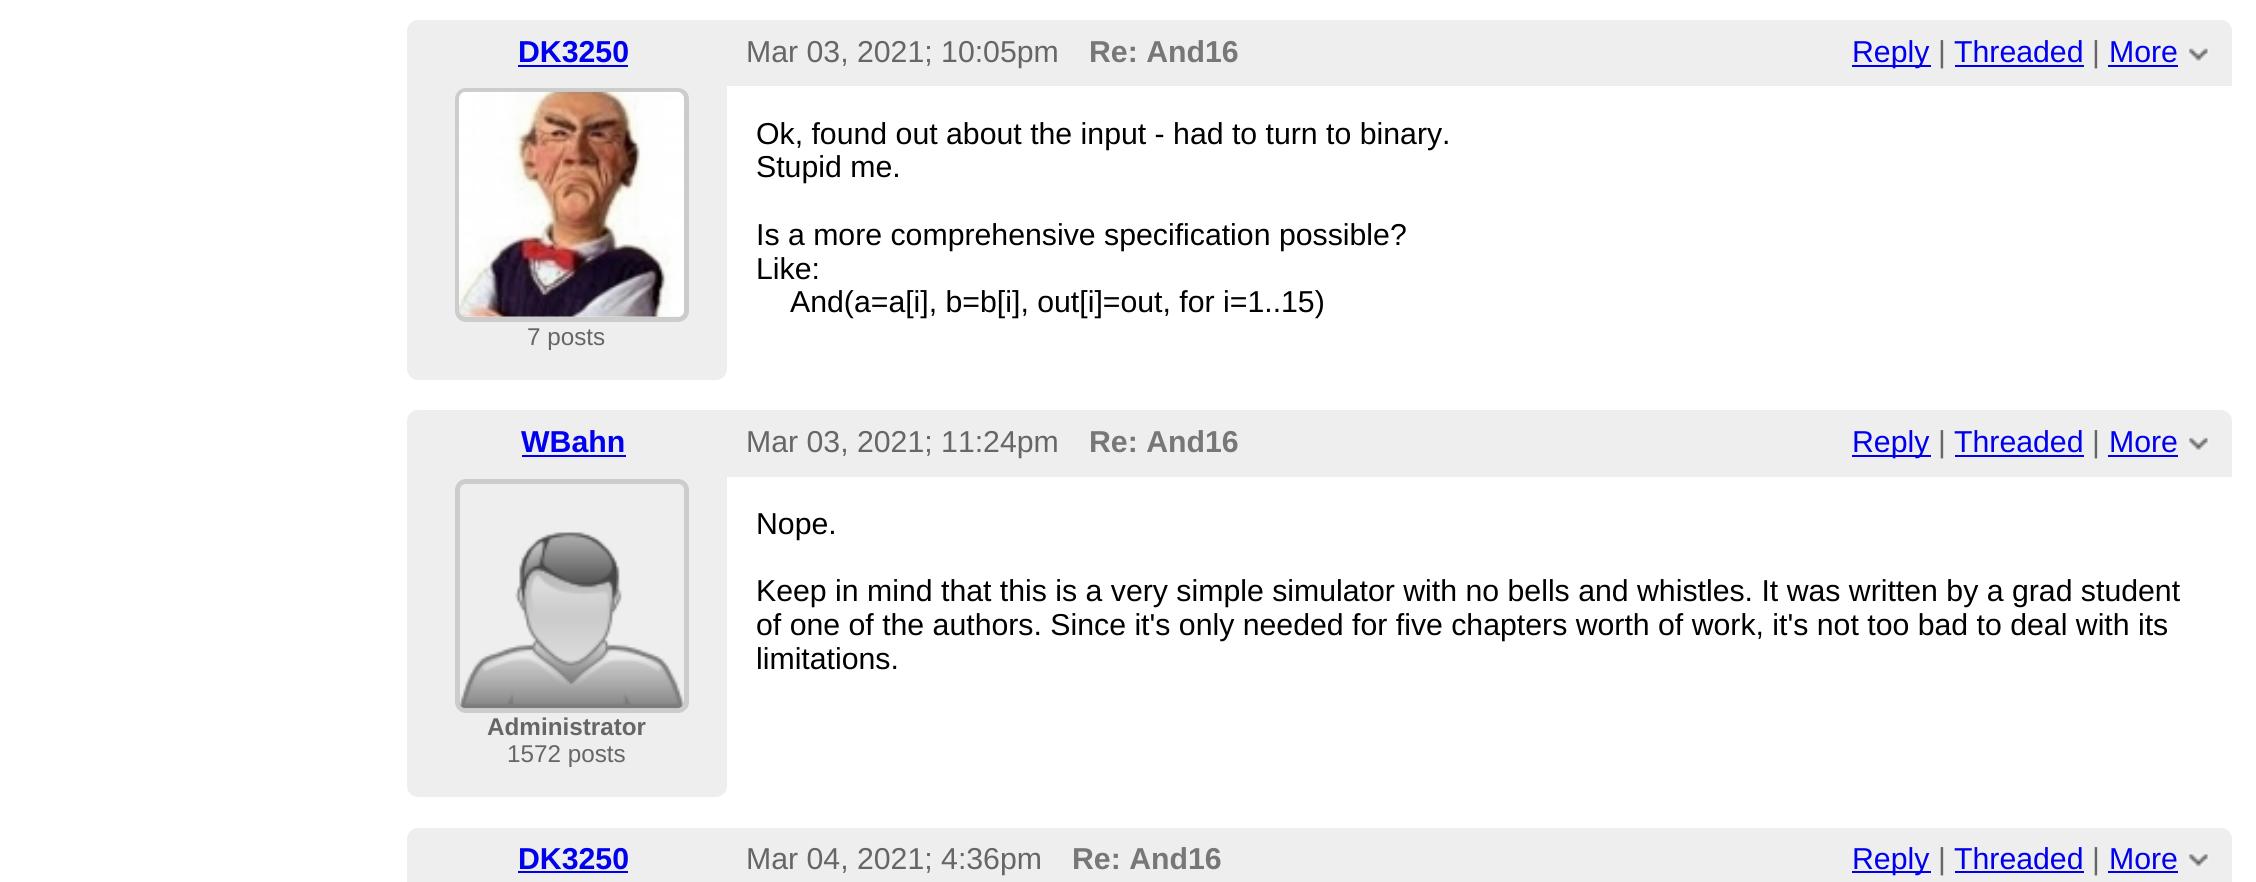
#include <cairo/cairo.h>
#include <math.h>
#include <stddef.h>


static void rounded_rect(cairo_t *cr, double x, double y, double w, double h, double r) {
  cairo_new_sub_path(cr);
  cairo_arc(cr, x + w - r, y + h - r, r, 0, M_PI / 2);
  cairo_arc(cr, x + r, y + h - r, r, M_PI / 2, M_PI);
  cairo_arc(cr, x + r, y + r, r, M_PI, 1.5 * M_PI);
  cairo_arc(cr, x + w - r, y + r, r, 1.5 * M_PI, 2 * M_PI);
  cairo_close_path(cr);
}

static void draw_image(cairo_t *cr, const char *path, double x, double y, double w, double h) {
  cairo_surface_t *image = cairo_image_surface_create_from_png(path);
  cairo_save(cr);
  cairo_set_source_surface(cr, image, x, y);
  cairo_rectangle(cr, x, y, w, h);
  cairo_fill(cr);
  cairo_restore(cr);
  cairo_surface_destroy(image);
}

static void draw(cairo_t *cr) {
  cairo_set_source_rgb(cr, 1, 1, 1);
  cairo_paint(cr);
  cairo_set_source_rgb(cr, 238 / 255.0, 238 / 255.0, 238 / 255.0);
  cairo_new_path(cr);
  cairo_move_to(cr, 418, 20);
  cairo_line_to(cr, 2221, 20);
  cairo_curve_to(cr, 2227, 20, 2232, 25, 2232, 31);
  cairo_line_to(cr, 2232, 86);
  cairo_line_to(cr, 407, 86);
  cairo_line_to(cr, 407, 31);
  cairo_curve_to(cr, 407, 25, 412, 20, 418, 20);
  cairo_close_path(cr);
  cairo_fill(cr);
  cairo_set_source_rgb(cr, 0, 0, 238 / 255.0);
  cairo_rectangle(cr, 518, 65, 110, 2);
  cairo_fill(cr);
  cairo_rectangle(cr, 1852, 65, 79, 2);
  cairo_fill(cr);
  cairo_rectangle(cr, 1955, 65, 129, 2);
  cairo_fill(cr);
  cairo_rectangle(cr, 2108, 65, 70, 2);
  cairo_fill(cr);
  draw_image(cr, "images/1.png", 2187, 48, 22, 14);
  cairo_set_source_rgb(cr, 238 / 255.0, 238 / 255.0, 238 / 255.0);
  cairo_new_path(cr);
  cairo_move_to(cr, 407, 86);
  cairo_line_to(cr, 727, 86);
  cairo_line_to(cr, 727, 369);
  cairo_curve_to(cr, 727, 375, 722, 380, 716, 380);
  cairo_line_to(cr, 418, 380);
  cairo_curve_to(cr, 412, 380, 407, 375, 407, 369);
  cairo_close_path(cr);
  cairo_fill(cr);
  rounded_rect(cr, 457.5, 90.5, 229, 229, 8.5);
  cairo_set_source_rgb(cr, 204 / 255.0, 204 / 255.0, 204 / 255.0);
  cairo_set_line_width(cr, 5);
  cairo_stroke(cr);
  draw_image(cr, "images/2.png", 459, 91, 225, 226);
  cairo_set_source_rgb(cr, 238 / 255.0, 238 / 255.0, 238 / 255.0);
  cairo_new_path(cr);
  cairo_move_to(cr, 418, 410);
  cairo_line_to(cr, 2221, 410);
  cairo_curve_to(cr, 2227, 410, 2232, 415, 2232, 421);
  cairo_line_to(cr, 2232, 477);
  cairo_line_to(cr, 407, 477);
  cairo_line_to(cr, 407, 421);
  cairo_curve_to(cr, 407, 415, 412, 410, 418, 410);
  cairo_close_path(cr);
  cairo_fill(cr);
  cairo_set_source_rgb(cr, 0, 0, 238 / 255.0);
  cairo_rectangle(cr, 522, 455, 104, 2);
  cairo_fill(cr);
  cairo_rectangle(cr, 1852, 455, 79, 2);
  cairo_fill(cr);
  cairo_rectangle(cr, 1955, 455, 129, 2);
  cairo_fill(cr);
  cairo_rectangle(cr, 2108, 455, 70, 2);
  cairo_fill(cr);
  draw_image(cr, "images/3.png", 2187, 437, 22, 13);
  cairo_set_source_rgb(cr, 238 / 255.0, 238 / 255.0, 238 / 255.0);
  cairo_new_path(cr);
  cairo_move_to(cr, 407, 477);
  cairo_line_to(cr, 727, 477);
  cairo_line_to(cr, 727, 786);
  cairo_curve_to(cr, 727, 792, 722, 797, 716, 797);
  cairo_line_to(cr, 418, 797);
  cairo_curve_to(cr, 412, 797, 407, 792, 407, 786);
  cairo_close_path(cr);
  cairo_fill(cr);
  rounded_rect(cr, 457.5, 481.5, 229, 229, 8.5);
  cairo_set_source_rgb(cr, 204 / 255.0, 204 / 255.0, 204 / 255.0);
  cairo_stroke(cr);
  draw_image(cr, "images/4.png", 459, 532, 225, 177);
  cairo_set_source_rgb(cr, 238 / 255.0, 238 / 255.0, 238 / 255.0);
  cairo_new_path(cr);
  cairo_move_to(cr, 418, 828);
  cairo_line_to(cr, 2221, 828);
  cairo_curve_to(cr, 2227, 828, 2232, 833, 2232, 839);
  cairo_line_to(cr, 2232, 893);
  cairo_line_to(cr, 407, 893);
  cairo_line_to(cr, 407, 839);
  cairo_curve_to(cr, 407, 833, 412, 828, 418, 828);
  cairo_close_path(cr);
  cairo_fill(cr);
  cairo_set_source_rgb(cr, 0, 0, 238 / 255.0);
  cairo_rectangle(cr, 518, 871, 110, 2);
  cairo_fill(cr);
  cairo_rectangle(cr, 1852, 871, 79, 2);
  cairo_fill(cr);
  cairo_rectangle(cr, 1955, 871, 129, 2);
  cairo_fill(cr);
  cairo_rectangle(cr, 2108, 871, 70, 2);
  cairo_fill(cr);
  draw_image(cr, "images/5.png", 2187, 853, 22, 15);
  cairo_select_font_face(cr, "Liberation Sans", CAIRO_FONT_SLANT_NORMAL, CAIRO_FONT_WEIGHT_BOLD);
  cairo_set_font_size(cr, 30.25);
  cairo_move_to(cr, 518, 62);
  cairo_show_text(cr, "DK3250");
  cairo_select_font_face(cr, "Liberation Sans", CAIRO_FONT_SLANT_NORMAL, CAIRO_FONT_WEIGHT_NORMAL);
  cairo_set_source_rgb(cr, 102 / 255.0, 102 / 255.0, 102 / 255.0);
  cairo_move_to(cr, 746, 62);
  cairo_show_text(cr, "Mar 03, 2021; 10:05pm");
  cairo_select_font_face(cr, "Liberation Sans", CAIRO_FONT_SLANT_NORMAL, CAIRO_FONT_WEIGHT_BOLD);
  cairo_set_source_rgb(cr, 119 / 255.0, 119 / 255.0, 119 / 255.0);
  cairo_move_to(cr, 1089, 62);
  cairo_show_text(cr, "Re: And16");
  cairo_select_font_face(cr, "Liberation Sans", CAIRO_FONT_SLANT_NORMAL, CAIRO_FONT_WEIGHT_NORMAL);
  cairo_set_source_rgb(cr, 0, 0, 238 / 255.0);
  cairo_move_to(cr, 1852, 62);
  cairo_show_text(cr, "Reply");
  cairo_set_source_rgb(cr, 102 / 255.0, 102 / 255.0, 102 / 255.0);
  cairo_move_to(cr, 1938, 62);
  cairo_show_text(cr, "|");
  cairo_set_source_rgb(cr, 0, 0, 238 / 255.0);
  cairo_move_to(cr, 1954, 62);
  cairo_show_text(cr, "Threaded");
  cairo_set_source_rgb(cr, 102 / 255.0, 102 / 255.0, 102 / 255.0);
  cairo_move_to(cr, 2092, 62);
  cairo_show_text(cr, "|");
  cairo_set_source_rgb(cr, 0, 0, 238 / 255.0);
  cairo_move_to(cr, 2109, 62);
  cairo_show_text(cr, "More");
  cairo_set_source_rgb(cr, 0, 0, 0);
  cairo_move_to(cr, 756, 144);
  cairo_show_text(cr, "Ok, found out about the input - had to turn to binary.");
  cairo_move_to(cr, 756, 177);
  cairo_show_text(cr, "Stupid me.");
  cairo_move_to(cr, 756, 245);
  cairo_show_text(cr, "Is a more comprehensive specification possible?");
  cairo_move_to(cr, 756, 279);
  cairo_show_text(cr, "Like:");
  cairo_move_to(cr, 790, 312);
  cairo_show_text(cr, "And(a=a[i], b=b[i], out[i]=out, for i=1..15)");
  cairo_set_font_size(cr, 24.25);
  cairo_set_source_rgb(cr, 102 / 255.0, 102 / 255.0, 102 / 255.0);
  cairo_move_to(cr, 527, 345);
  cairo_show_text(cr, "7 posts");
  cairo_select_font_face(cr, "Liberation Sans", CAIRO_FONT_SLANT_NORMAL, CAIRO_FONT_WEIGHT_BOLD);
  cairo_set_font_size(cr, 30.25);
  cairo_set_source_rgb(cr, 0, 0, 238 / 255.0);
  cairo_move_to(cr, 521, 452);
  cairo_show_text(cr, "WBahn");
  cairo_select_font_face(cr, "Liberation Sans", CAIRO_FONT_SLANT_NORMAL, CAIRO_FONT_WEIGHT_NORMAL);
  cairo_set_source_rgb(cr, 102 / 255.0, 102 / 255.0, 102 / 255.0);
  cairo_move_to(cr, 746, 452);
  cairo_show_text(cr, "Mar 03, 2021; 11:24pm");
  cairo_select_font_face(cr, "Liberation Sans", CAIRO_FONT_SLANT_NORMAL, CAIRO_FONT_WEIGHT_BOLD);
  cairo_set_source_rgb(cr, 119 / 255.0, 119 / 255.0, 119 / 255.0);
  cairo_move_to(cr, 1089, 452);
  cairo_show_text(cr, "Re: And16");
  cairo_select_font_face(cr, "Liberation Sans", CAIRO_FONT_SLANT_NORMAL, CAIRO_FONT_WEIGHT_NORMAL);
  cairo_set_source_rgb(cr, 0, 0, 238 / 255.0);
  cairo_move_to(cr, 1852, 452);
  cairo_show_text(cr, "Reply");
  cairo_set_source_rgb(cr, 102 / 255.0, 102 / 255.0, 102 / 255.0);
  cairo_move_to(cr, 1938, 452);
  cairo_show_text(cr, "|");
  cairo_set_source_rgb(cr, 0, 0, 238 / 255.0);
  cairo_move_to(cr, 1954, 452);
  cairo_show_text(cr, "Threaded");
  cairo_set_source_rgb(cr, 102 / 255.0, 102 / 255.0, 102 / 255.0);
  cairo_move_to(cr, 2092, 452);
  cairo_show_text(cr, "|");
  cairo_set_source_rgb(cr, 0, 0, 238 / 255.0);
  cairo_move_to(cr, 2109, 452);
  cairo_show_text(cr, "More");
  cairo_set_source_rgb(cr, 0, 0, 0);
  cairo_move_to(cr, 756, 534);
  cairo_show_text(cr, "Nope.");
  cairo_move_to(cr, 756, 601);
  cairo_show_text(cr, "Keep in mind that this is a very simple simulator with no bells and whistles. It was written by a grad student");
  cairo_move_to(cr, 756, 635);
  cairo_show_text(cr, "of one of the authors. Since it's only needed for five chapters worth of work, it's not too bad to deal with its");
  cairo_move_to(cr, 756, 669);
  cairo_show_text(cr, "limitations.");
  cairo_select_font_face(cr, "Liberation Sans", CAIRO_FONT_SLANT_NORMAL, CAIRO_FONT_WEIGHT_BOLD);
  cairo_set_font_size(cr, 24.25);
  cairo_set_source_rgb(cr, 102 / 255.0, 102 / 255.0, 102 / 255.0);
  cairo_move_to(cr, 487, 735);
  cairo_show_text(cr, "Administrator");
  cairo_select_font_face(cr, "Liberation Sans", CAIRO_FONT_SLANT_NORMAL, CAIRO_FONT_WEIGHT_NORMAL);
  cairo_move_to(cr, 507, 762);
  cairo_show_text(cr, "1572 posts");
  cairo_select_font_face(cr, "Liberation Sans", CAIRO_FONT_SLANT_NORMAL, CAIRO_FONT_WEIGHT_BOLD);
  cairo_set_font_size(cr, 30.25);
  cairo_set_source_rgb(cr, 0, 0, 238 / 255.0);
  cairo_move_to(cr, 518, 869);
  cairo_show_text(cr, "DK3250");
  cairo_select_font_face(cr, "Liberation Sans", CAIRO_FONT_SLANT_NORMAL, CAIRO_FONT_WEIGHT_NORMAL);
  cairo_set_source_rgb(cr, 102 / 255.0, 102 / 255.0, 102 / 255.0);
  cairo_move_to(cr, 746, 869);
  cairo_show_text(cr, "Mar 04, 2021; 4:36pm");
  cairo_select_font_face(cr, "Liberation Sans", CAIRO_FONT_SLANT_NORMAL, CAIRO_FONT_WEIGHT_BOLD);
  cairo_set_source_rgb(cr, 119 / 255.0, 119 / 255.0, 119 / 255.0);
  cairo_move_to(cr, 1072, 869);
  cairo_show_text(cr, "Re: And16");
  cairo_select_font_face(cr, "Liberation Sans", CAIRO_FONT_SLANT_NORMAL, CAIRO_FONT_WEIGHT_NORMAL);
  cairo_set_source_rgb(cr, 0, 0, 238 / 255.0);
  cairo_move_to(cr, 1852, 869);
  cairo_show_text(cr, "Reply");
  cairo_set_source_rgb(cr, 102 / 255.0, 102 / 255.0, 102 / 255.0);
  cairo_move_to(cr, 1938, 869);
  cairo_show_text(cr, "|");
  cairo_set_source_rgb(cr, 0, 0, 238 / 255.0);
  cairo_move_to(cr, 1954, 869);
  cairo_show_text(cr, "Threaded");
  cairo_set_source_rgb(cr, 102 / 255.0, 102 / 255.0, 102 / 255.0);
  cairo_move_to(cr, 2092, 869);
  cairo_show_text(cr, "|");
  cairo_set_source_rgb(cr, 0, 0, 238 / 255.0);
  cairo_move_to(cr, 2109, 869);
  cairo_show_text(cr, "More");
}

int main(void) {
  cairo_surface_t *surface = cairo_image_surface_create(CAIRO_FORMAT_RGB24, 2256, 882);
  cairo_t *cr = cairo_create(surface);
  cairo_font_options_t *options = cairo_font_options_create();
  cairo_font_options_set_hint_metrics(options, CAIRO_HINT_METRICS_OFF);
  cairo_font_options_set_hint_style(options, CAIRO_HINT_STYLE_NONE);
  cairo_set_font_options(cr, options);
  cairo_set_miter_limit(cr, 4);
  draw(cr);
  cairo_surface_write_to_png(surface, "out.png");
  cairo_font_options_destroy(options);
  cairo_destroy(cr);
  cairo_surface_destroy(surface);
  return 0;
}
